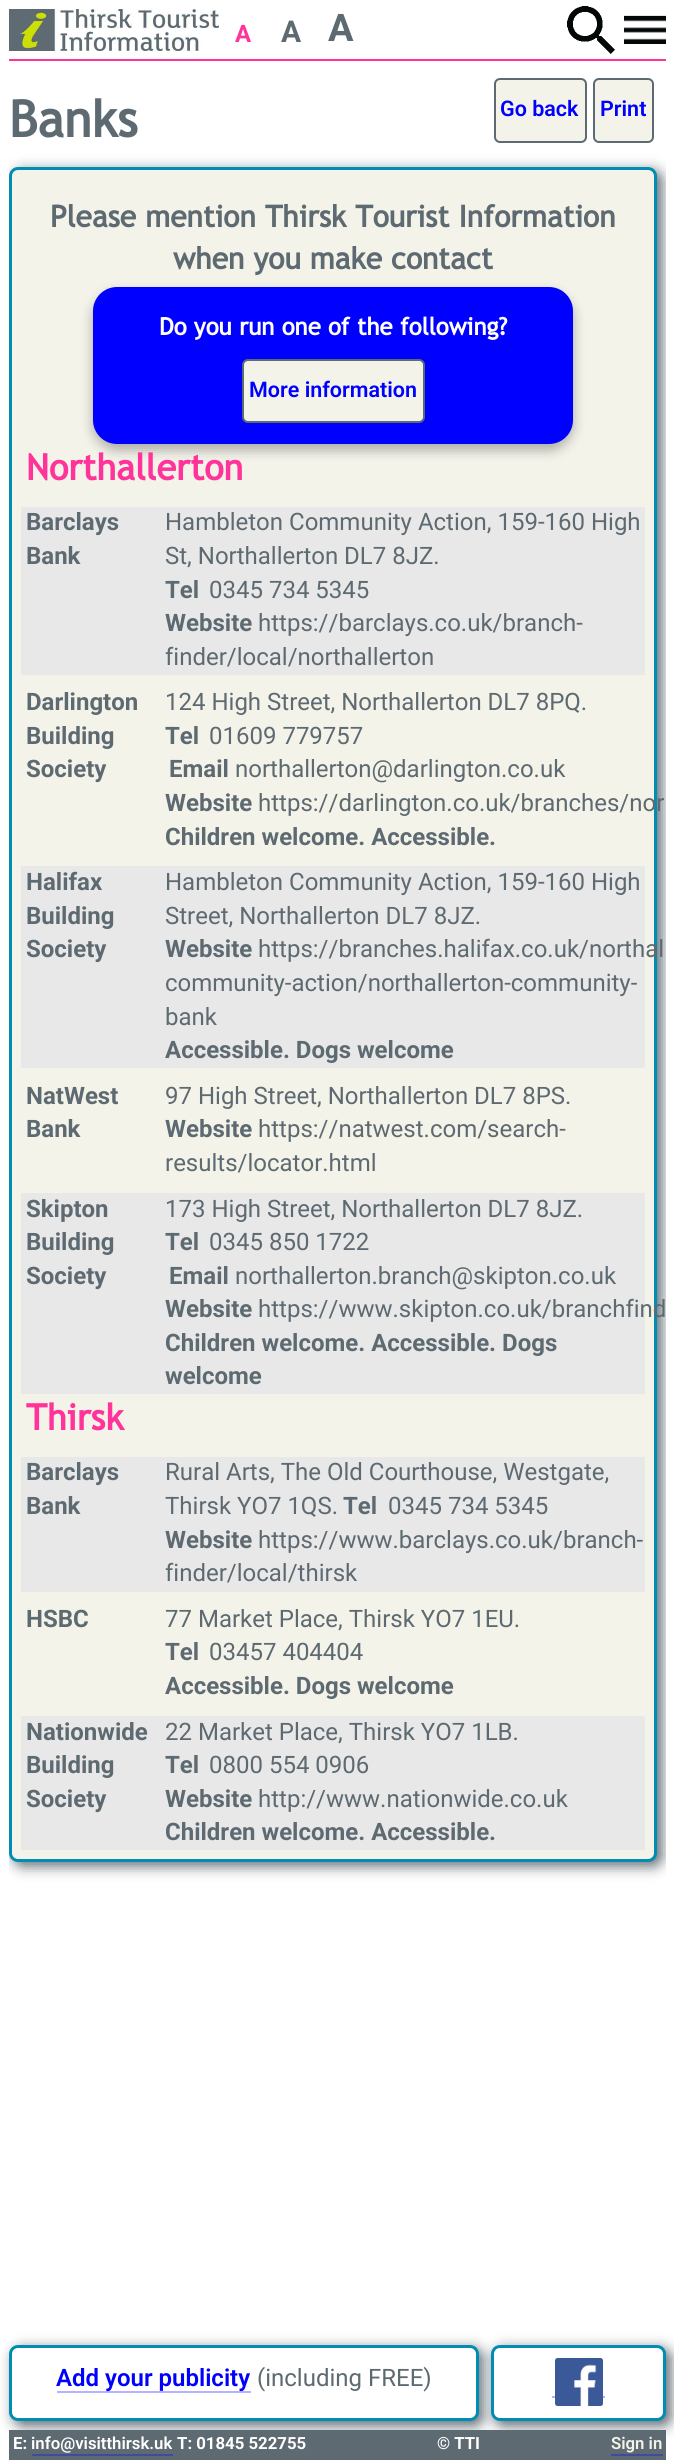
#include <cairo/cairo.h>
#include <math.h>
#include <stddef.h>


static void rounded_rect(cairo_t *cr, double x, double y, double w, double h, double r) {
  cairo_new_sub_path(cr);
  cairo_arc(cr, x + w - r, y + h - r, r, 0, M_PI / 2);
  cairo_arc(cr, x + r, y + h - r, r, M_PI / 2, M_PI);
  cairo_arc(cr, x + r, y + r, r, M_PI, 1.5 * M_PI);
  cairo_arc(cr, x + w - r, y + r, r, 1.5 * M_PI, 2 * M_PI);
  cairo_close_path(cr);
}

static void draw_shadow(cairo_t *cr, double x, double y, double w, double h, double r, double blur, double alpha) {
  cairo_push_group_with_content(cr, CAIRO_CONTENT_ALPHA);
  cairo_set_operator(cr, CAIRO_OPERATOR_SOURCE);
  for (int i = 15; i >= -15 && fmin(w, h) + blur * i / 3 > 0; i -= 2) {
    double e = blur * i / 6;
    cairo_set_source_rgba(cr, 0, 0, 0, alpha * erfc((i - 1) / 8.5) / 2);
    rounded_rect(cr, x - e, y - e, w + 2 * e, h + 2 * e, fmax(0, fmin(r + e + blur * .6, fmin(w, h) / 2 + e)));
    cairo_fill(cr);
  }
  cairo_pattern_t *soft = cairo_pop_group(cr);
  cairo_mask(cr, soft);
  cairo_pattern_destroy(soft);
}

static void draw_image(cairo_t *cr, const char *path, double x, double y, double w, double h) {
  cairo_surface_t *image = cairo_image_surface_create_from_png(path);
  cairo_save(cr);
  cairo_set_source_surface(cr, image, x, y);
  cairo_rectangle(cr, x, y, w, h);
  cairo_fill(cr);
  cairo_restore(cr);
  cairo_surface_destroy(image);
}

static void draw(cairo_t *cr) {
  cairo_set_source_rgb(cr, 1, 1, 1);
  cairo_paint(cr);
  cairo_set_source_rgb(cr, 1, 51 / 255.0, 153 / 255.0);
  cairo_rectangle(cr, 9, 59, 657, 2);
  cairo_fill(cr);
  draw_image(cr, "images/1.png", 9, 9, 210, 42);
  draw_image(cr, "images/2.png", 567, 6, 48, 48);
  draw_image(cr, "images/3.png", 624, 15, 42, 29);
  cairo_set_source_rgb(cr, 244 / 255.0, 243 / 255.0, 234 / 255.0);
  rounded_rect(cr, 495, 79, 91, 63, 5);
  cairo_fill_preserve(cr);
  cairo_set_source_rgb(cr, 94 / 255.0, 106 / 255.0, 113 / 255.0);
  cairo_stroke(cr);
  cairo_set_source_rgb(cr, 244 / 255.0, 243 / 255.0, 234 / 255.0);
  rounded_rect(cr, 594, 79, 59, 63, 5);
  cairo_fill_preserve(cr);
  cairo_set_source_rgb(cr, 94 / 255.0, 106 / 255.0, 113 / 255.0);
  cairo_stroke(cr);
  cairo_save(cr);
  cairo_rectangle(cr, 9, 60, 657, 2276);
  cairo_clip(cr);
  cairo_set_source_rgb(cr, 94 / 255.0, 106 / 255.0, 113 / 255.0);
  draw_shadow(cr, 14, 171, 648, 1695, 9, 7, 1);
  cairo_restore(cr);
  cairo_set_source_rgb(cr, 244 / 255.0, 243 / 255.0, 234 / 255.0);
  rounded_rect(cr, 10.5, 168.5, 645, 1692, 7.5);
  cairo_fill_preserve(cr);
  cairo_set_source_rgb(cr, 0, 140 / 255.0, 179 / 255.0);
  cairo_set_line_width(cr, 3);
  cairo_stroke(cr);
  cairo_set_source_rgb(cr, 0, 0, 0);
  draw_shadow(cr, 93, 293, 480, 157, 24, 6, 0.3);
  cairo_set_source_rgb(cr, 0, 0, 1);
  rounded_rect(cr, 93, 287, 480, 157, 24);
  cairo_fill(cr);
  cairo_set_source_rgb(cr, 244 / 255.0, 243 / 255.0, 234 / 255.0);
  rounded_rect(cr, 243, 360, 181, 62, 5);
  cairo_fill_preserve(cr);
  cairo_set_source_rgb(cr, 94 / 255.0, 106 / 255.0, 113 / 255.0);
  cairo_set_line_width(cr, 2);
  cairo_stroke(cr);
  cairo_set_source_rgb(cr, 232 / 255.0, 232 / 255.0, 232 / 255.0);
  cairo_rectangle(cr, 21, 507, 624, 168);
  cairo_fill(cr);
  cairo_rectangle(cr, 21, 866, 624, 202);
  cairo_fill(cr);
  cairo_rectangle(cr, 21, 1193, 624, 201);
  cairo_fill(cr);
  cairo_rectangle(cr, 21, 1457, 624, 135);
  cairo_fill(cr);
  cairo_rectangle(cr, 21, 1716, 624, 134);
  cairo_fill(cr);
  cairo_set_source_rgb(cr, 94 / 255.0, 106 / 255.0, 113 / 255.0);
  draw_shadow(cr, 14, 2349, 469, 77, 9, 7, 1);
  cairo_set_source_rgb(cr, 1, 1, 1);
  rounded_rect(cr, 10.5, 2346.5, 467, 73, 7.5);
  cairo_fill_preserve(cr);
  cairo_set_source_rgb(cr, 0, 140 / 255.0, 179 / 255.0);
  cairo_set_line_width(cr, 3);
  cairo_stroke(cr);
  cairo_set_source_rgb(cr, 179 / 255.0, 179 / 255.0, 1);
  cairo_rectangle(cr, 57, 2391, 194, 2);
  cairo_fill(cr);
  cairo_set_source_rgb(cr, 94 / 255.0, 106 / 255.0, 113 / 255.0);
  draw_shadow(cr, 495, 2349, 176, 77, 9, 7, 1);
  cairo_set_source_rgb(cr, 1, 1, 1);
  rounded_rect(cr, 492.5, 2346.5, 172, 73, 7.5);
  cairo_fill_preserve(cr);
  cairo_set_source_rgb(cr, 0, 140 / 255.0, 179 / 255.0);
  cairo_stroke(cr);
  cairo_set_source_rgb(cr, 179 / 255.0, 179 / 255.0, 1);
  cairo_rectangle(cr, 552, 2396, 53, 2);
  cairo_fill(cr);
  cairo_set_source_rgb(cr, 1, 1, 1);
  cairo_rectangle(cr, 555, 2396, 48, 2);
  cairo_fill(cr);
  draw_image(cr, "images/4.png", 555, 2358, 48, 48);
  cairo_set_source_rgb(cr, 94 / 255.0, 106 / 255.0, 113 / 255.0);
  cairo_rectangle(cr, 9, 2430, 657, 30);
  cairo_fill(cr);
  cairo_set_source_rgb(cr, 66 / 255.0, 74 / 255.0, 156 / 255.0);
  cairo_rectangle(cr, 32, 2454, 141, 2);
  cairo_fill(cr);
  cairo_rectangle(cr, 611, 2454, 52, 2);
  cairo_fill(cr);
  cairo_select_font_face(cr, "Roboto", CAIRO_FONT_SLANT_NORMAL, CAIRO_FONT_WEIGHT_BOLD);
  cairo_set_font_size(cr, 24);
  cairo_set_source_rgb(cr, 1, 51 / 255.0, 153 / 255.0);
  cairo_move_to(cr, 235, 42);
  cairo_show_text(cr, "A");
  cairo_set_font_size(cr, 30);
  cairo_set_source_rgb(cr, 94 / 255.0, 106 / 255.0, 113 / 255.0);
  cairo_move_to(cr, 281, 42);
  cairo_show_text(cr, "A");
  cairo_set_font_size(cr, 38);
  cairo_move_to(cr, 328, 41);
  cairo_show_text(cr, "A");
  cairo_select_font_face(cr, "Trebuchet MS", CAIRO_FONT_SLANT_NORMAL, CAIRO_FONT_WEIGHT_BOLD);
  cairo_set_font_size(cr, 50.5);
  cairo_move_to(cr, 9, 137);
  cairo_show_text(cr, "Banks");
  cairo_select_font_face(cr, "Roboto SemiBold", CAIRO_FONT_SLANT_NORMAL, CAIRO_FONT_WEIGHT_NORMAL);
  cairo_set_font_size(cr, 21.5);
  cairo_set_source_rgb(cr, 0, 0, 1);
  cairo_move_to(cr, 500, 116);
  cairo_show_text(cr, "Go back");
  cairo_move_to(cr, 600, 116);
  cairo_show_text(cr, "Print");
  cairo_select_font_face(cr, "Trebuchet MS", CAIRO_FONT_SLANT_NORMAL, CAIRO_FONT_WEIGHT_BOLD);
  cairo_set_font_size(cr, 30);
  cairo_set_source_rgb(cr, 94 / 255.0, 106 / 255.0, 113 / 255.0);
  cairo_move_to(cr, 50, 227);
  cairo_show_text(cr, "Please mention Thirsk Tourist Information");
  cairo_move_to(cr, 173, 269);
  cairo_show_text(cr, "when you make contact");
  cairo_set_font_size(cr, 24);
  cairo_set_source_rgb(cr, 1, 1, 1);
  cairo_move_to(cr, 159, 335);
  cairo_show_text(cr, "Do you run one of the following?");
  cairo_select_font_face(cr, "Roboto SemiBold", CAIRO_FONT_SLANT_NORMAL, CAIRO_FONT_WEIGHT_NORMAL);
  cairo_set_font_size(cr, 21.5);
  cairo_set_source_rgb(cr, 0, 0, 1);
  cairo_move_to(cr, 249, 397);
  cairo_show_text(cr, "More information");
  cairo_select_font_face(cr, "Trebuchet MS", CAIRO_FONT_SLANT_NORMAL, CAIRO_FONT_WEIGHT_BOLD);
  cairo_set_font_size(cr, 36);
  cairo_set_source_rgb(cr, 1, 51 / 255.0, 153 / 255.0);
  cairo_move_to(cr, 26, 480);
  cairo_show_text(cr, "Northallerton");
  cairo_select_font_face(cr, "Roboto", CAIRO_FONT_SLANT_NORMAL, CAIRO_FONT_WEIGHT_BOLD);
  cairo_set_font_size(cr, 24);
  cairo_set_source_rgb(cr, 94 / 255.0, 106 / 255.0, 113 / 255.0);
  cairo_move_to(cr, 26, 530);
  cairo_show_text(cr, "Barclays");
  cairo_move_to(cr, 26, 564);
  cairo_show_text(cr, "Bank");
  cairo_select_font_face(cr, "Roboto", CAIRO_FONT_SLANT_NORMAL, CAIRO_FONT_WEIGHT_NORMAL);
  cairo_move_to(cr, 165, 530);
  cairo_show_text(cr, "Hambleton Community Action, 159-160 High");
  cairo_move_to(cr, 165, 564);
  cairo_show_text(cr, "St, Northallerton DL7 8JZ.");
  cairo_select_font_face(cr, "Roboto", CAIRO_FONT_SLANT_NORMAL, CAIRO_FONT_WEIGHT_BOLD);
  cairo_move_to(cr, 165, 598);
  cairo_show_text(cr, "Tel");
  cairo_select_font_face(cr, "Roboto", CAIRO_FONT_SLANT_NORMAL, CAIRO_FONT_WEIGHT_NORMAL);
  cairo_move_to(cr, 209, 598);
  cairo_show_text(cr, "0345 734 5345");
  cairo_select_font_face(cr, "Roboto", CAIRO_FONT_SLANT_NORMAL, CAIRO_FONT_WEIGHT_BOLD);
  cairo_move_to(cr, 165, 631);
  cairo_show_text(cr, "Website");
  cairo_select_font_face(cr, "Roboto", CAIRO_FONT_SLANT_NORMAL, CAIRO_FONT_WEIGHT_NORMAL);
  cairo_move_to(cr, 258, 631);
  cairo_show_text(cr, "https://barclays.co.uk/branch-");
  cairo_move_to(cr, 165, 665);
  cairo_show_text(cr, "finder/local/northallerton");
  cairo_select_font_face(cr, "Roboto", CAIRO_FONT_SLANT_NORMAL, CAIRO_FONT_WEIGHT_BOLD);
  cairo_move_to(cr, 26, 710);
  cairo_show_text(cr, "Darlington");
  cairo_move_to(cr, 26, 744);
  cairo_show_text(cr, "Building");
  cairo_move_to(cr, 26, 777);
  cairo_show_text(cr, "Society");
  cairo_select_font_face(cr, "Roboto", CAIRO_FONT_SLANT_NORMAL, CAIRO_FONT_WEIGHT_NORMAL);
  cairo_move_to(cr, 165, 710);
  cairo_show_text(cr, "124 High Street, Northallerton DL7 8PQ.");
  cairo_select_font_face(cr, "Roboto", CAIRO_FONT_SLANT_NORMAL, CAIRO_FONT_WEIGHT_BOLD);
  cairo_move_to(cr, 165, 744);
  cairo_show_text(cr, "Tel");
  cairo_select_font_face(cr, "Roboto", CAIRO_FONT_SLANT_NORMAL, CAIRO_FONT_WEIGHT_NORMAL);
  cairo_move_to(cr, 209, 744);
  cairo_show_text(cr, "01609 779757");
  cairo_select_font_face(cr, "Roboto", CAIRO_FONT_SLANT_NORMAL, CAIRO_FONT_WEIGHT_BOLD);
  cairo_move_to(cr, 169, 777);
  cairo_show_text(cr, "Email");
  cairo_select_font_face(cr, "Roboto", CAIRO_FONT_SLANT_NORMAL, CAIRO_FONT_WEIGHT_NORMAL);
  cairo_move_to(cr, 235, 777);
  cairo_show_text(cr, "northallerton@darlington.co.uk");
  cairo_select_font_face(cr, "Roboto", CAIRO_FONT_SLANT_NORMAL, CAIRO_FONT_WEIGHT_BOLD);
  cairo_move_to(cr, 165, 811);
  cairo_show_text(cr, "Website");
  cairo_select_font_face(cr, "Roboto", CAIRO_FONT_SLANT_NORMAL, CAIRO_FONT_WEIGHT_NORMAL);
  cairo_move_to(cr, 258, 811);
  cairo_show_text(cr, "https://darlington.co.uk/branches/nor");
  cairo_select_font_face(cr, "Roboto", CAIRO_FONT_SLANT_NORMAL, CAIRO_FONT_WEIGHT_BOLD);
  cairo_move_to(cr, 165, 845);
  cairo_show_text(cr, "Children welcome. Accessible.");
  cairo_move_to(cr, 26, 890);
  cairo_show_text(cr, "Halifax");
  cairo_move_to(cr, 26, 924);
  cairo_show_text(cr, "Building");
  cairo_move_to(cr, 26, 957);
  cairo_show_text(cr, "Society");
  cairo_select_font_face(cr, "Roboto", CAIRO_FONT_SLANT_NORMAL, CAIRO_FONT_WEIGHT_NORMAL);
  cairo_move_to(cr, 165, 890);
  cairo_show_text(cr, "Hambleton Community Action, 159-160 High");
  cairo_move_to(cr, 165, 924);
  cairo_show_text(cr, "Street, Northallerton DL7 8JZ.");
  cairo_select_font_face(cr, "Roboto", CAIRO_FONT_SLANT_NORMAL, CAIRO_FONT_WEIGHT_BOLD);
  cairo_move_to(cr, 165, 957);
  cairo_show_text(cr, "Website");
  cairo_select_font_face(cr, "Roboto", CAIRO_FONT_SLANT_NORMAL, CAIRO_FONT_WEIGHT_NORMAL);
  cairo_move_to(cr, 258, 957);
  cairo_show_text(cr, "https://branches.halifax.co.uk/northal");
  cairo_move_to(cr, 165, 991);
  cairo_show_text(cr, "community-action/northallerton-community-");
  cairo_move_to(cr, 165, 1025);
  cairo_show_text(cr, "bank");
  cairo_select_font_face(cr, "Roboto", CAIRO_FONT_SLANT_NORMAL, CAIRO_FONT_WEIGHT_BOLD);
  cairo_move_to(cr, 165, 1058);
  cairo_show_text(cr, "Accessible. Dogs welcome");
  cairo_move_to(cr, 26, 1104);
  cairo_show_text(cr, "NatWest");
  cairo_move_to(cr, 26, 1137);
  cairo_show_text(cr, "Bank");
  cairo_select_font_face(cr, "Roboto", CAIRO_FONT_SLANT_NORMAL, CAIRO_FONT_WEIGHT_NORMAL);
  cairo_move_to(cr, 165, 1104);
  cairo_show_text(cr, "97 High Street, Northallerton DL7 8PS.");
  cairo_select_font_face(cr, "Roboto", CAIRO_FONT_SLANT_NORMAL, CAIRO_FONT_WEIGHT_BOLD);
  cairo_move_to(cr, 165, 1137);
  cairo_show_text(cr, "Website");
  cairo_select_font_face(cr, "Roboto", CAIRO_FONT_SLANT_NORMAL, CAIRO_FONT_WEIGHT_NORMAL);
  cairo_move_to(cr, 258, 1137);
  cairo_show_text(cr, "https://natwest.com/search-");
  cairo_move_to(cr, 165, 1171);
  cairo_show_text(cr, "results/locator.html");
  cairo_select_font_face(cr, "Roboto", CAIRO_FONT_SLANT_NORMAL, CAIRO_FONT_WEIGHT_BOLD);
  cairo_move_to(cr, 26, 1217);
  cairo_show_text(cr, "Skipton");
  cairo_move_to(cr, 26, 1250);
  cairo_show_text(cr, "Building");
  cairo_move_to(cr, 26, 1284);
  cairo_show_text(cr, "Society");
  cairo_select_font_face(cr, "Roboto", CAIRO_FONT_SLANT_NORMAL, CAIRO_FONT_WEIGHT_NORMAL);
  cairo_move_to(cr, 165, 1217);
  cairo_show_text(cr, "173 High Street, Northallerton DL7 8JZ.");
  cairo_select_font_face(cr, "Roboto", CAIRO_FONT_SLANT_NORMAL, CAIRO_FONT_WEIGHT_BOLD);
  cairo_move_to(cr, 165, 1250);
  cairo_show_text(cr, "Tel");
  cairo_select_font_face(cr, "Roboto", CAIRO_FONT_SLANT_NORMAL, CAIRO_FONT_WEIGHT_NORMAL);
  cairo_move_to(cr, 209, 1250);
  cairo_show_text(cr, "0345 850 1722");
  cairo_select_font_face(cr, "Roboto", CAIRO_FONT_SLANT_NORMAL, CAIRO_FONT_WEIGHT_BOLD);
  cairo_move_to(cr, 169, 1284);
  cairo_show_text(cr, "Email");
  cairo_select_font_face(cr, "Roboto", CAIRO_FONT_SLANT_NORMAL, CAIRO_FONT_WEIGHT_NORMAL);
  cairo_move_to(cr, 235, 1284);
  cairo_show_text(cr, "northallerton.branch@skipton.co.uk");
  cairo_select_font_face(cr, "Roboto", CAIRO_FONT_SLANT_NORMAL, CAIRO_FONT_WEIGHT_BOLD);
  cairo_move_to(cr, 165, 1317);
  cairo_show_text(cr, "Website");
  cairo_select_font_face(cr, "Roboto", CAIRO_FONT_SLANT_NORMAL, CAIRO_FONT_WEIGHT_NORMAL);
  cairo_move_to(cr, 258, 1317);
  cairo_show_text(cr, "https://www.skipton.co.uk/branchfind");
  cairo_select_font_face(cr, "Roboto", CAIRO_FONT_SLANT_NORMAL, CAIRO_FONT_WEIGHT_BOLD);
  cairo_move_to(cr, 165, 1351);
  cairo_show_text(cr, "Children welcome. Accessible. Dogs");
  cairo_move_to(cr, 165, 1384);
  cairo_show_text(cr, "welcome");
  cairo_select_font_face(cr, "Trebuchet MS", CAIRO_FONT_SLANT_NORMAL, CAIRO_FONT_WEIGHT_BOLD);
  cairo_set_font_size(cr, 36);
  cairo_set_source_rgb(cr, 1, 51 / 255.0, 153 / 255.0);
  cairo_move_to(cr, 26, 1430);
  cairo_show_text(cr, "Thirsk");
  cairo_select_font_face(cr, "Roboto", CAIRO_FONT_SLANT_NORMAL, CAIRO_FONT_WEIGHT_BOLD);
  cairo_set_font_size(cr, 24);
  cairo_set_source_rgb(cr, 94 / 255.0, 106 / 255.0, 113 / 255.0);
  cairo_move_to(cr, 26, 1480);
  cairo_show_text(cr, "Barclays");
  cairo_move_to(cr, 26, 1514);
  cairo_show_text(cr, "Bank");
  cairo_select_font_face(cr, "Roboto", CAIRO_FONT_SLANT_NORMAL, CAIRO_FONT_WEIGHT_NORMAL);
  cairo_move_to(cr, 165, 1480);
  cairo_show_text(cr, "Rural Arts, The Old Courthouse, Westgate,");
  cairo_move_to(cr, 165, 1514);
  cairo_show_text(cr, "Thirsk YO7 1QS.");
  cairo_select_font_face(cr, "Roboto", CAIRO_FONT_SLANT_NORMAL, CAIRO_FONT_WEIGHT_BOLD);
  cairo_move_to(cr, 343, 1514);
  cairo_show_text(cr, "Tel");
  cairo_select_font_face(cr, "Roboto", CAIRO_FONT_SLANT_NORMAL, CAIRO_FONT_WEIGHT_NORMAL);
  cairo_move_to(cr, 388, 1514);
  cairo_show_text(cr, "0345 734 5345");
  cairo_select_font_face(cr, "Roboto", CAIRO_FONT_SLANT_NORMAL, CAIRO_FONT_WEIGHT_BOLD);
  cairo_move_to(cr, 165, 1548);
  cairo_show_text(cr, "Website");
  cairo_select_font_face(cr, "Roboto", CAIRO_FONT_SLANT_NORMAL, CAIRO_FONT_WEIGHT_NORMAL);
  cairo_move_to(cr, 258, 1548);
  cairo_show_text(cr, "https://www.barclays.co.uk/branch-");
  cairo_move_to(cr, 165, 1581);
  cairo_show_text(cr, "finder/local/thirsk");
  cairo_select_font_face(cr, "Roboto", CAIRO_FONT_SLANT_NORMAL, CAIRO_FONT_WEIGHT_BOLD);
  cairo_move_to(cr, 26, 1627);
  cairo_show_text(cr, "HSBC");
  cairo_select_font_face(cr, "Roboto", CAIRO_FONT_SLANT_NORMAL, CAIRO_FONT_WEIGHT_NORMAL);
  cairo_move_to(cr, 165, 1627);
  cairo_show_text(cr, "77 Market Place, Thirsk YO7 1EU.");
  cairo_select_font_face(cr, "Roboto", CAIRO_FONT_SLANT_NORMAL, CAIRO_FONT_WEIGHT_BOLD);
  cairo_move_to(cr, 165, 1660);
  cairo_show_text(cr, "Tel");
  cairo_select_font_face(cr, "Roboto", CAIRO_FONT_SLANT_NORMAL, CAIRO_FONT_WEIGHT_NORMAL);
  cairo_move_to(cr, 209, 1660);
  cairo_show_text(cr, "03457 404404");
  cairo_select_font_face(cr, "Roboto", CAIRO_FONT_SLANT_NORMAL, CAIRO_FONT_WEIGHT_BOLD);
  cairo_move_to(cr, 165, 1694);
  cairo_show_text(cr, "Accessible. Dogs welcome");
  cairo_move_to(cr, 26, 1740);
  cairo_show_text(cr, "Nationwide");
  cairo_move_to(cr, 26, 1773);
  cairo_show_text(cr, "Building");
  cairo_move_to(cr, 26, 1807);
  cairo_show_text(cr, "Society");
  cairo_select_font_face(cr, "Roboto", CAIRO_FONT_SLANT_NORMAL, CAIRO_FONT_WEIGHT_NORMAL);
  cairo_move_to(cr, 165, 1740);
  cairo_show_text(cr, "22 Market Place, Thirsk YO7 1LB.");
  cairo_select_font_face(cr, "Roboto", CAIRO_FONT_SLANT_NORMAL, CAIRO_FONT_WEIGHT_BOLD);
  cairo_move_to(cr, 165, 1773);
  cairo_show_text(cr, "Tel");
  cairo_select_font_face(cr, "Roboto", CAIRO_FONT_SLANT_NORMAL, CAIRO_FONT_WEIGHT_NORMAL);
  cairo_move_to(cr, 209, 1773);
  cairo_show_text(cr, "0800 554 0906");
  cairo_select_font_face(cr, "Roboto", CAIRO_FONT_SLANT_NORMAL, CAIRO_FONT_WEIGHT_BOLD);
  cairo_move_to(cr, 165, 1807);
  cairo_show_text(cr, "Website");
  cairo_select_font_face(cr, "Roboto", CAIRO_FONT_SLANT_NORMAL, CAIRO_FONT_WEIGHT_NORMAL);
  cairo_move_to(cr, 258, 1807);
  cairo_show_text(cr, "http://www.nationwide.co.uk");
  cairo_select_font_face(cr, "Roboto", CAIRO_FONT_SLANT_NORMAL, CAIRO_FONT_WEIGHT_BOLD);
  cairo_move_to(cr, 165, 1840);
  cairo_show_text(cr, "Children welcome. Accessible.");
  cairo_select_font_face(cr, "Roboto SemiBold", CAIRO_FONT_SLANT_NORMAL, CAIRO_FONT_WEIGHT_NORMAL);
  cairo_set_source_rgb(cr, 0, 0, 1);
  cairo_move_to(cr, 56, 2386);
  cairo_show_text(cr, "Add your publicity");
  cairo_select_font_face(cr, "Roboto", CAIRO_FONT_SLANT_NORMAL, CAIRO_FONT_WEIGHT_NORMAL);
  cairo_set_source_rgb(cr, 94 / 255.0, 106 / 255.0, 113 / 255.0);
  cairo_move_to(cr, 257, 2386);
  cairo_show_text(cr, "(including FREE)");
  cairo_select_font_face(cr, "Roboto", CAIRO_FONT_SLANT_NORMAL, CAIRO_FONT_WEIGHT_BOLD);
  cairo_set_font_size(cr, 16.75);
  cairo_set_source_rgb(cr, 1, 1, 1);
  cairo_move_to(cr, 13, 2449);
  cairo_show_text(cr, "E:");
  cairo_select_font_face(cr, "Roboto SemiBold", CAIRO_FONT_SLANT_NORMAL, CAIRO_FONT_WEIGHT_NORMAL);
  cairo_move_to(cr, 31, 2449);
  cairo_show_text(cr, "info@visitthirsk.uk");
  cairo_select_font_face(cr, "Roboto", CAIRO_FONT_SLANT_NORMAL, CAIRO_FONT_WEIGHT_BOLD);
  cairo_move_to(cr, 177, 2449);
  cairo_show_text(cr, "T: 01845 522755");
  cairo_move_to(cr, 437, 2449);
  cairo_show_text(cr, "© TTI");
  cairo_select_font_face(cr, "Roboto SemiBold", CAIRO_FONT_SLANT_NORMAL, CAIRO_FONT_WEIGHT_NORMAL);
  cairo_set_source_rgb(cr, 244 / 255.0, 243 / 255.0, 234 / 255.0);
  cairo_move_to(cr, 611, 2449);
  cairo_show_text(cr, "Sign in");
}

int main(void) {
  cairo_surface_t *surface = cairo_image_surface_create(CAIRO_FORMAT_RGB24, 674, 2460);
  cairo_t *cr = cairo_create(surface);
  cairo_font_options_t *options = cairo_font_options_create();
  cairo_font_options_set_hint_metrics(options, CAIRO_HINT_METRICS_OFF);
  cairo_font_options_set_hint_style(options, CAIRO_HINT_STYLE_NONE);
  cairo_set_font_options(cr, options);
  cairo_set_miter_limit(cr, 4);
  draw(cr);
  cairo_surface_write_to_png(surface, "out.png");
  cairo_font_options_destroy(options);
  cairo_destroy(cr);
  cairo_surface_destroy(surface);
  return 0;
}
